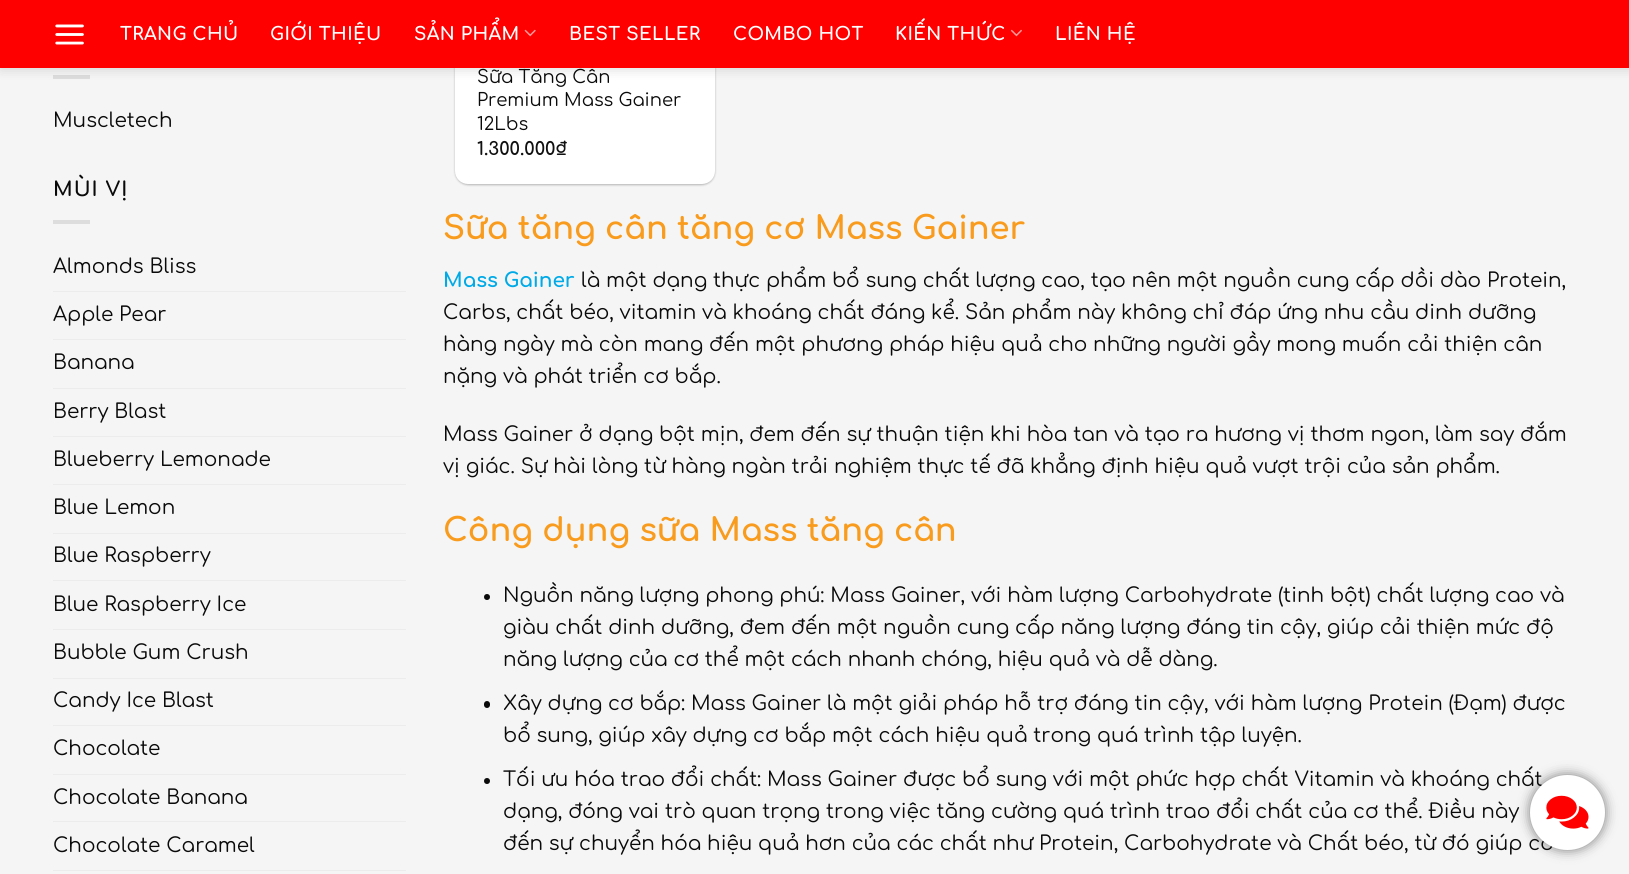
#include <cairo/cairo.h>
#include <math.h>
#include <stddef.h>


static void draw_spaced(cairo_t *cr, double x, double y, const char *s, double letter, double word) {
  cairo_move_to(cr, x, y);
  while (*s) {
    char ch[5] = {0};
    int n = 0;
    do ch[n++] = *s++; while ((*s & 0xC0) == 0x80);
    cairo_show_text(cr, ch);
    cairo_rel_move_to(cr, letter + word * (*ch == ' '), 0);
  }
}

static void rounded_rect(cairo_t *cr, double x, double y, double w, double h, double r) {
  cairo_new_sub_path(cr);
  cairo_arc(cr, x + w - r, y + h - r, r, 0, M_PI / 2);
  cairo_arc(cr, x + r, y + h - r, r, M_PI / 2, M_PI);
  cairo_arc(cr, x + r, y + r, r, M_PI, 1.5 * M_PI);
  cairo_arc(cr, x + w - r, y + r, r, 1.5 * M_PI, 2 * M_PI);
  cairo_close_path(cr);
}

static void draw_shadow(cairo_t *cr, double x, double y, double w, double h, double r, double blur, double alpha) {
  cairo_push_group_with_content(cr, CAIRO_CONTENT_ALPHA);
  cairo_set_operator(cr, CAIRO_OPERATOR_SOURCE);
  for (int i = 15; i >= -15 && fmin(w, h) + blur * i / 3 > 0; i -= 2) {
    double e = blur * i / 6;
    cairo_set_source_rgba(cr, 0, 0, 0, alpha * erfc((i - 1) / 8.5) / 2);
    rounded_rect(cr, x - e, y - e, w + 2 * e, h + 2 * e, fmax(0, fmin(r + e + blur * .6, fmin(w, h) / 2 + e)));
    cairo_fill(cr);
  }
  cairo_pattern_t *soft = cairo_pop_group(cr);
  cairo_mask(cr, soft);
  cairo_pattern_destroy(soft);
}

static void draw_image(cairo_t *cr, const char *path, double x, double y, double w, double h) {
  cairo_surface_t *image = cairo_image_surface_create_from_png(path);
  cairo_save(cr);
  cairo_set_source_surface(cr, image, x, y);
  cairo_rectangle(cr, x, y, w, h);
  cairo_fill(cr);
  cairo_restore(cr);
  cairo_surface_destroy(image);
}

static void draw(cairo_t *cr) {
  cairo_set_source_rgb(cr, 245 / 255.0, 245 / 255.0, 245 / 255.0);
  cairo_paint(cr);
  cairo_set_source_rgb(cr, 221 / 255.0, 221 / 255.0, 221 / 255.0);
  cairo_rectangle(cr, 53, 75, 37, 4);
  cairo_fill(cr);
  cairo_set_source_rgb(cr, 0, 0, 0);
  draw_shadow(cr, 455, -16, 260, 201, 13, 1, 0.24);
  draw_shadow(cr, 458, -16, 255, 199, 10, 2, 0.12);
  cairo_set_source_rgb(cr, 1, 1, 1);
  rounded_rect(cr, 455, -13, 260, 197, 13);
  cairo_fill(cr);
  cairo_set_source_rgb(cr, 0, 0, 0);
  draw_shadow(cr, 1, 1, 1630, 68, 0, 6, 0.15);
  cairo_set_source_rgb(cr, 1, 0, 0);
  cairo_rectangle(cr, 0, 0, 1629, 68);
  cairo_fill(cr);
  draw_image(cr, "images/1.png", 55, 24, 29, 21);
  draw_image(cr, "images/2.png", 524, 29, 12, 8);
  draw_image(cr, "images/3.png", 1010, 29, 12, 8);
  cairo_set_source_rgb(cr, 221 / 255.0, 221 / 255.0, 221 / 255.0);
  cairo_rectangle(cr, 53, 220, 37, 4);
  cairo_fill(cr);
  cairo_set_source_rgb(cr, 236 / 255.0, 236 / 255.0, 236 / 255.0);
  cairo_rectangle(cr, 53, 291, 353, 1);
  cairo_fill(cr);
  cairo_rectangle(cr, 53, 339, 353, 1);
  cairo_fill(cr);
  cairo_rectangle(cr, 53, 388, 353, 1);
  cairo_fill(cr);
  cairo_rectangle(cr, 53, 436, 353, 1);
  cairo_fill(cr);
  cairo_rectangle(cr, 53, 484, 353, 1);
  cairo_fill(cr);
  cairo_rectangle(cr, 53, 533, 353, 1);
  cairo_fill(cr);
  cairo_rectangle(cr, 53, 580, 353, 1);
  cairo_fill(cr);
  cairo_rectangle(cr, 53, 629, 353, 1);
  cairo_fill(cr);
  cairo_rectangle(cr, 53, 678, 353, 1);
  cairo_fill(cr);
  cairo_rectangle(cr, 53, 725, 353, 1);
  cairo_fill(cr);
  cairo_rectangle(cr, 53, 774, 353, 1);
  cairo_fill(cr);
  cairo_rectangle(cr, 53, 821, 353, 1);
  cairo_fill(cr);
  cairo_rectangle(cr, 53, 870, 353, 1);
  cairo_fill(cr);
  cairo_set_source_rgb(cr, 10 / 255.0, 10 / 255.0, 10 / 255.0);
  cairo_arc(cr, 487, 597, 3, 0, 2 * M_PI);
  cairo_fill(cr);
  rounded_rect(cr, 484, 701, 6, 7, 3);
  cairo_fill(cr);
  cairo_arc(cr, 487, 781, 3, 0, 2 * M_PI);
  cairo_fill(cr);
  cairo_set_source_rgb(cr, 0, 0, 0);
  draw_shadow(cr, 1530, 775, 75, 75, 37.5, 6, 0.5);
  cairo_select_font_face(cr, "Comfortaa", CAIRO_FONT_SLANT_NORMAL, CAIRO_FONT_WEIGHT_BOLD);
  cairo_set_font_size(cr, 18);
  cairo_set_source_rgb(cr, 1, 1, 1);
  draw_spaced(cr, 120, 40, "TRANG CHỦ", 0.4, 0);
  draw_spaced(cr, 270, 40, "GIỚI THIỆU", 0.4, 0);
  draw_spaced(cr, 414, 40, "SẢN PHẨM", 0.4, 0);
  draw_spaced(cr, 569, 40, "BEST SELLER", 0.4, 0);
  draw_spaced(cr, 733, 40, "COMBO HOT", 0.4, 0);
  draw_spaced(cr, 895, 40, "KIẾN THỨC", 0.4, 0);
  draw_spaced(cr, 1055, 40, "LIÊN HỆ", 0.4, 0);
  cairo_select_font_face(cr, "Comfortaa", CAIRO_FONT_SLANT_NORMAL, CAIRO_FONT_WEIGHT_NORMAL);
  cairo_set_font_size(cr, 20);
  cairo_set_source_rgb(cr, 10 / 255.0, 10 / 255.0, 10 / 255.0);
  cairo_move_to(cr, 53, 127);
  cairo_show_text(cr, "Muscletech");
  cairo_select_font_face(cr, "Comfortaa", CAIRO_FONT_SLANT_NORMAL, CAIRO_FONT_WEIGHT_BOLD);
  draw_spaced(cr, 53, 196, "MÙI VỊ", 1, 0);
  cairo_select_font_face(cr, "Comfortaa", CAIRO_FONT_SLANT_NORMAL, CAIRO_FONT_WEIGHT_NORMAL);
  cairo_move_to(cr, 53, 273);
  cairo_show_text(cr, "Almonds Bliss");
  cairo_move_to(cr, 53, 321);
  cairo_show_text(cr, "Apple Pear");
  cairo_move_to(cr, 53, 369);
  cairo_show_text(cr, "Banana");
  cairo_move_to(cr, 53, 418);
  cairo_show_text(cr, "Berry Blast");
  cairo_move_to(cr, 53, 466);
  cairo_show_text(cr, "Blueberry Lemonade");
  cairo_move_to(cr, 53, 514);
  cairo_show_text(cr, "Blue Lemon");
  cairo_move_to(cr, 53, 562);
  cairo_show_text(cr, "Blue Raspberry");
  cairo_move_to(cr, 53, 611);
  cairo_show_text(cr, "Blue Raspberry Ice");
  cairo_move_to(cr, 53, 659);
  cairo_show_text(cr, "Bubble Gum Crush");
  cairo_move_to(cr, 53, 707);
  cairo_show_text(cr, "Candy Ice Blast");
  cairo_move_to(cr, 53, 755);
  cairo_show_text(cr, "Chocolate");
  cairo_move_to(cr, 53, 804);
  cairo_show_text(cr, "Chocolate Banana");
  cairo_move_to(cr, 53, 852);
  cairo_show_text(cr, "Chocolate Caramel");
  cairo_set_font_size(cr, 18);
  cairo_move_to(cr, 477, 83);
  cairo_show_text(cr, "Sữa Tăng Cân");
  cairo_move_to(cr, 477, 106);
  cairo_show_text(cr, "Premium Mass Gainer");
  cairo_move_to(cr, 477, 130);
  cairo_show_text(cr, "12Lbs");
  cairo_select_font_face(cr, "Comfortaa", CAIRO_FONT_SLANT_NORMAL, CAIRO_FONT_WEIGHT_BOLD);
  cairo_set_source_rgb(cr, 17 / 255.0, 17 / 255.0, 17 / 255.0);
  cairo_move_to(cr, 477, 155);
  cairo_show_text(cr, "1.300.000₫");
  cairo_set_font_size(cr, 32);
  cairo_set_source_rgb(cr, 249 / 255.0, 155 / 255.0, 28 / 255.0);
  cairo_move_to(cr, 443, 239);
  cairo_show_text(cr, "Sữa tăng cân tăng cơ Mass Gainer");
  cairo_set_font_size(cr, 20);
  cairo_set_source_rgb(cr, 0, 170 / 255.0, 231 / 255.0);
  cairo_move_to(cr, 443, 287);
  cairo_show_text(cr, "Mass Gainer");
  cairo_select_font_face(cr, "Comfortaa", CAIRO_FONT_SLANT_NORMAL, CAIRO_FONT_WEIGHT_NORMAL);
  cairo_set_source_rgb(cr, 10 / 255.0, 10 / 255.0, 10 / 255.0);
  cairo_move_to(cr, 581, 287);
  cairo_show_text(cr, "là một dạng thực phẩm bổ sung chất lượng cao, tạo nên một nguồn cung cấp dồi dào Protein,");
  cairo_move_to(cr, 443, 319);
  cairo_show_text(cr, "Carbs, chất béo, vitamin và khoáng chất đáng kể. Sản phẩm này không chỉ đáp ứng nhu cầu dinh dưỡng");
  cairo_move_to(cr, 443, 351);
  cairo_show_text(cr, "hàng ngày mà còn mang đến một phương pháp hiệu quả cho những người gầy mong muốn cải thiện cân");
  cairo_move_to(cr, 443, 383);
  cairo_show_text(cr, "nặng và phát triển cơ bắp.");
  cairo_move_to(cr, 443, 441);
  cairo_show_text(cr, "Mass Gainer ở dạng bột mịn, đem đến sự thuận tiện khi hòa tan và tạo ra hương vị thơm ngon, làm say đắm");
  cairo_move_to(cr, 443, 473);
  cairo_show_text(cr, "vị giác. Sự hài lòng từ hàng ngàn trải nghiệm thực tế đã khẳng định hiệu quả vượt trội của sản phẩm.");
  cairo_select_font_face(cr, "Comfortaa", CAIRO_FONT_SLANT_NORMAL, CAIRO_FONT_WEIGHT_BOLD);
  cairo_set_font_size(cr, 32);
  cairo_set_source_rgb(cr, 249 / 255.0, 155 / 255.0, 28 / 255.0);
  cairo_move_to(cr, 443, 541);
  cairo_show_text(cr, "Công dụng sữa Mass tăng cân");
  cairo_select_font_face(cr, "Comfortaa", CAIRO_FONT_SLANT_NORMAL, CAIRO_FONT_WEIGHT_NORMAL);
  cairo_set_font_size(cr, 20);
  cairo_set_source_rgb(cr, 10 / 255.0, 10 / 255.0, 10 / 255.0);
  cairo_move_to(cr, 503, 602);
  cairo_show_text(cr, "Nguồn năng lượng phong phú: Mass Gainer, với hàm lượng Carbohydrate (tinh bột) chất lượng cao và");
  cairo_move_to(cr, 503, 634);
  cairo_show_text(cr, "giàu chất dinh dưỡng, đem đến một nguồn cung cấp năng lượng đáng tin cậy, giúp cải thiện mức độ");
  cairo_move_to(cr, 503, 666);
  cairo_show_text(cr, "năng lượng của cơ thể một cách nhanh chóng, hiệu quả và dễ dàng.");
  cairo_move_to(cr, 503, 710);
  cairo_show_text(cr, "Xây dựng cơ bắp: Mass Gainer là một giải pháp hỗ trợ đáng tin cậy, với hàm lượng Protein (Đạm) được");
  cairo_move_to(cr, 503, 742);
  cairo_show_text(cr, "bổ sung, giúp xây dựng cơ bắp một cách hiệu quả trong quá trình tập luyện.");
  cairo_move_to(cr, 503, 786);
  cairo_show_text(cr, "Tối ưu hóa trao đổi chất: Mass Gainer được bổ sung với một phức hợp chất Vitamin và khoáng chất");
  cairo_move_to(cr, 503, 818);
  cairo_show_text(cr, "dạng, đóng vai trò quan trọng trong việc tăng cường quá trình trao đổi chất của cơ thể. Điều này");
  cairo_move_to(cr, 503, 850);
  cairo_show_text(cr, "đến sự chuyển hóa hiệu quả hơn của các chất như Protein, Carbohydrate và Chất béo, từ đó giúp cơ");
  cairo_set_source_rgb(cr, 1, 1, 1);
  cairo_new_path(cr);
  cairo_arc(cr, 1567.5, 812.5, 37.5, 0, 2 * M_PI);
  cairo_fill(cr);
  draw_image(cr, "images/4.png", 1546, 795, 43, 34);
}

int main(void) {
  cairo_surface_t *surface = cairo_image_surface_create(CAIRO_FORMAT_RGB24, 1629, 874);
  cairo_t *cr = cairo_create(surface);
  cairo_font_options_t *options = cairo_font_options_create();
  cairo_font_options_set_hint_metrics(options, CAIRO_HINT_METRICS_OFF);
  cairo_font_options_set_hint_style(options, CAIRO_HINT_STYLE_NONE);
  cairo_set_font_options(cr, options);
  cairo_set_miter_limit(cr, 4);
  draw(cr);
  cairo_surface_write_to_png(surface, "out.png");
  cairo_font_options_destroy(options);
  cairo_destroy(cr);
  cairo_surface_destroy(surface);
  return 0;
}
